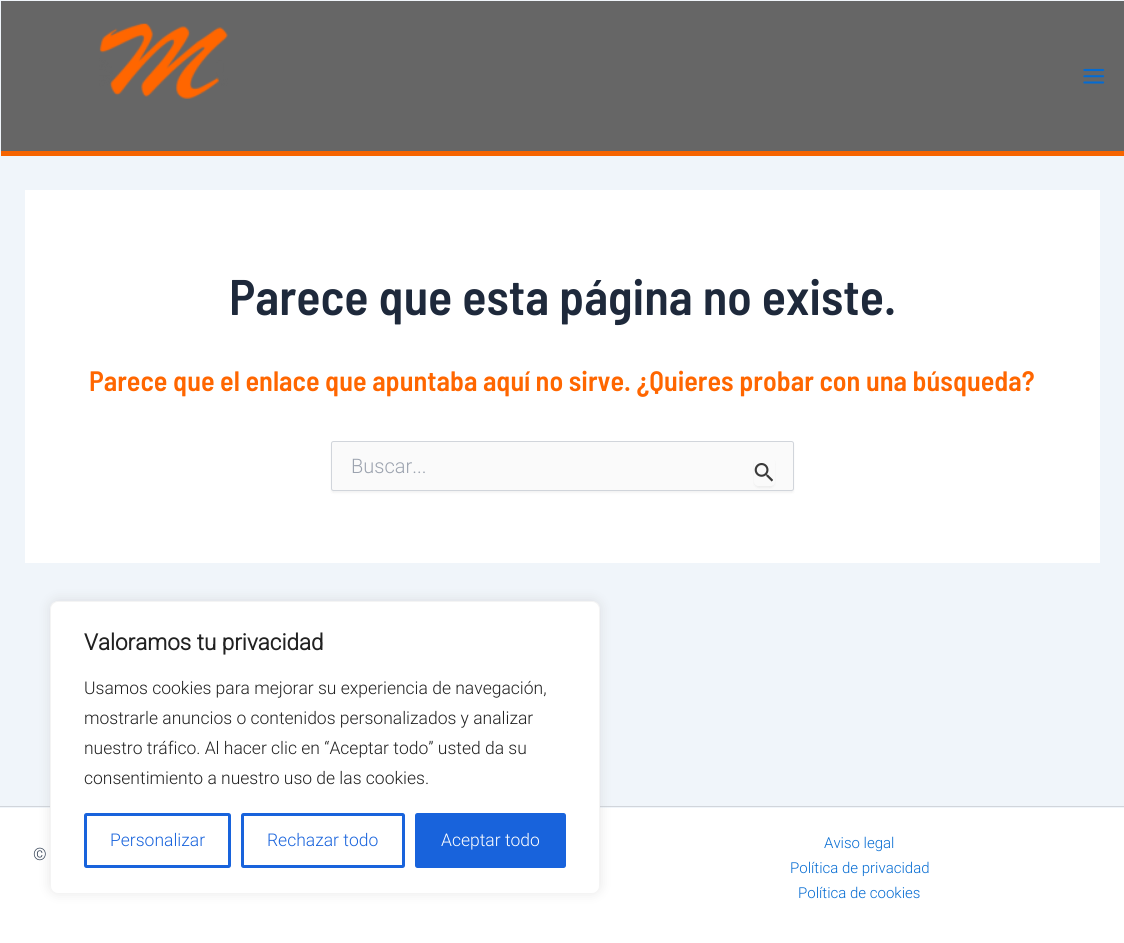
#include <cairo/cairo.h>
#include <math.h>
#include <stddef.h>


static void rounded_rect(cairo_t *cr, double x, double y, double w, double h, double r) {
  cairo_new_sub_path(cr);
  cairo_arc(cr, x + w - r, y + h - r, r, 0, M_PI / 2);
  cairo_arc(cr, x + r, y + h - r, r, M_PI / 2, M_PI);
  cairo_arc(cr, x + r, y + r, r, M_PI, 1.5 * M_PI);
  cairo_arc(cr, x + w - r, y + r, r, 1.5 * M_PI, 2 * M_PI);
  cairo_close_path(cr);
}

static void draw_shadow(cairo_t *cr, double x, double y, double w, double h, double r, double blur, double alpha) {
  cairo_push_group_with_content(cr, CAIRO_CONTENT_ALPHA);
  cairo_set_operator(cr, CAIRO_OPERATOR_SOURCE);
  for (int i = 15; i >= -15 && fmin(w, h) + blur * i / 3 > 0; i -= 2) {
    double e = blur * i / 6;
    cairo_set_source_rgba(cr, 0, 0, 0, alpha * erfc((i - 1) / 8.5) / 2);
    rounded_rect(cr, x - e, y - e, w + 2 * e, h + 2 * e, fmax(0, fmin(r + e + blur * .6, fmin(w, h) / 2 + e)));
    cairo_fill(cr);
  }
  cairo_pattern_t *soft = cairo_pop_group(cr);
  cairo_mask(cr, soft);
  cairo_pattern_destroy(soft);
}

static void draw_image(cairo_t *cr, const char *path, double x, double y, double w, double h) {
  cairo_surface_t *image = cairo_image_surface_create_from_png(path);
  cairo_save(cr);
  cairo_set_source_surface(cr, image, x, y);
  cairo_rectangle(cr, x, y, w, h);
  cairo_fill(cr);
  cairo_restore(cr);
  cairo_surface_destroy(image);
}

static void draw(cairo_t *cr) {
  cairo_set_source_rgb(cr, 240 / 255.0, 245 / 255.0, 250 / 255.0);
  cairo_paint(cr);
  cairo_set_source_rgb(cr, 102 / 255.0, 102 / 255.0, 102 / 255.0);
  cairo_rectangle(cr, 1, 1, 1123, 150);
  cairo_fill(cr);
  cairo_set_source_rgb(cr, 246 / 255.0, 100 / 255.0, 0);
  cairo_rectangle(cr, 1, 151, 1123, 5);
  cairo_fill(cr);
  draw_image(cr, "images/1.png", 99, 23, 129, 76);
  draw_image(cr, "images/2.png", 1083, 68, 22, 16);
  cairo_set_source_rgb(cr, 1, 1, 1);
  cairo_rectangle(cr, 25, 190, 1075, 373);
  cairo_fill(cr);
  cairo_set_source_rgb(cr, 0, 0, 0);
  draw_shadow(cr, 331, 443, 463, 50, 2.5, 1, 0.05);
  cairo_set_source_rgb(cr, 250 / 255.0, 250 / 255.0, 250 / 255.0);
  rounded_rect(cr, 331.5, 441.5, 462, 49, 2);
  cairo_fill_preserve(cr);
  cairo_set_source_rgb(cr, 209 / 255.0, 213 / 255.0, 219 / 255.0);
  cairo_set_line_width(cr, 1);
  cairo_stroke(cr);
  cairo_save(cr);
  cairo_set_fill_rule(cr, CAIRO_FILL_RULE_EVEN_ODD);
  cairo_new_path(cr);
  cairo_move_to(cr, 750, 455);
  cairo_line_to(cr, 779, 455);
  cairo_line_to(cr, 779, 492);
  cairo_line_to(cr, 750, 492);
  cairo_close_path(cr);
  cairo_move_to(cr, 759, 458);
  cairo_line_to(cr, 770, 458);
  cairo_curve_to(cr, 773, 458, 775, 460, 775, 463);
  cairo_line_to(cr, 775, 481);
  cairo_curve_to(cr, 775, 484, 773, 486, 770, 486);
  cairo_line_to(cr, 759, 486);
  cairo_curve_to(cr, 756, 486, 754, 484, 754, 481);
  cairo_line_to(cr, 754, 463);
  cairo_curve_to(cr, 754, 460, 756, 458, 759, 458);
  cairo_close_path(cr);
  cairo_clip(cr);
  cairo_set_source_rgb(cr, 0, 0, 0);
  draw_shadow(cr, 754, 459, 21, 29, 5, 1, 0.05);
  cairo_restore(cr);
  draw_image(cr, "images/3.png", 754, 463, 19, 19);
  cairo_set_source_rgb(cr, 1, 1, 1);
  cairo_rectangle(cr, 0, 808, 1124, 135);
  cairo_fill(cr);
  cairo_set_source_rgb(cr, 209 / 255.0, 213 / 255.0, 219 / 255.0);
  cairo_rectangle(cr, 0, 806, 1124, 1);
  cairo_fill(cr);
  cairo_set_source_rgb(cr, 172 / 255.0, 171 / 255.0, 171 / 255.0);
  draw_shadow(cr, 50, 600, 550, 293, 8, 6, 0.3);
  cairo_set_source_rgb(cr, 1, 1, 1);
  rounded_rect(cr, 50.5, 601.5, 549, 292, 7.5);
  cairo_fill_preserve(cr);
  cairo_set_source_rgb(cr, 244 / 255.0, 244 / 255.0, 244 / 255.0);
  cairo_stroke(cr);
  rounded_rect(cr, 85.5, 814.5, 144, 52, 1);
  cairo_set_source_rgb(cr, 24 / 255.0, 99 / 255.0, 220 / 255.0);
  cairo_set_line_width(cr, 3);
  cairo_stroke(cr);
  rounded_rect(cr, 242.5, 814.5, 161, 52, 1);
  cairo_stroke(cr);
  rounded_rect(cr, 416.5, 814.5, 148, 52, 1);
  cairo_fill_preserve(cr);
  cairo_stroke(cr);
  cairo_select_font_face(cr, "Barlow Semi Condensed SemiBold", CAIRO_FONT_SLANT_NORMAL, CAIRO_FONT_WEIGHT_NORMAL);
  cairo_set_font_size(cr, 50);
  cairo_set_source_rgb(cr, 30 / 255.0, 41 / 255.0, 59 / 255.0);
  cairo_move_to(cr, 229, 315);
  cairo_show_text(cr, "Parece que esta página no existe.");
  cairo_set_font_size(cr, 28.1);
  cairo_set_source_rgb(cr, 1, 102 / 255.0, 0);
  cairo_move_to(cr, 89, 391);
  cairo_show_text(cr, "Parece que el enlace que apuntaba aquí no sirve. ¿Quieres probar con una búsqueda?");
  cairo_select_font_face(cr, "Roboto Light", CAIRO_FONT_SLANT_NORMAL, CAIRO_FONT_WEIGHT_NORMAL);
  cairo_set_font_size(cr, 20);
  cairo_set_source_rgb(cr, 156 / 255.0, 163 / 255.0, 175 / 255.0);
  cairo_move_to(cr, 351, 473);
  cairo_show_text(cr, "Buscar...");
  cairo_set_font_size(cr, 17);
  cairo_set_source_rgb(cr, 51 / 255.0, 65 / 255.0, 85 / 255.0);
  cairo_move_to(cr, 33, 860);
  cairo_show_text(cr, "©");
  cairo_set_font_size(cr, 15);
  cairo_set_source_rgb(cr, 4 / 255.0, 107 / 255.0, 210 / 255.0);
  cairo_move_to(cr, 824, 848);
  cairo_show_text(cr, "Aviso legal");
  cairo_move_to(cr, 790, 873);
  cairo_show_text(cr, "Política de privacidad");
  cairo_move_to(cr, 798, 898);
  cairo_show_text(cr, "Política de cookies");
  cairo_select_font_face(cr, "Roboto", CAIRO_FONT_SLANT_NORMAL, CAIRO_FONT_WEIGHT_BOLD);
  cairo_set_font_size(cr, 22.5);
  cairo_set_source_rgb(cr, 33 / 255.0, 33 / 255.0, 33 / 255.0);
  cairo_move_to(cr, 84, 650);
  cairo_show_text(cr, "Valoramos tu privacidad");
  cairo_select_font_face(cr, "Roboto Light", CAIRO_FONT_SLANT_NORMAL, CAIRO_FONT_WEIGHT_NORMAL);
  cairo_set_font_size(cr, 17.5);
  cairo_move_to(cr, 84, 694);
  cairo_show_text(cr, "Usamos cookies para mejorar su experiencia de navegación,");
  cairo_move_to(cr, 84, 724);
  cairo_show_text(cr, "mostrarle anuncios o contenidos personalizados y analizar");
  cairo_move_to(cr, 84, 754);
  cairo_show_text(cr, "nuestro tráfico. Al hacer clic en “Aceptar todo” usted da su");
  cairo_move_to(cr, 84, 784);
  cairo_show_text(cr, "consentimiento a nuestro uso de las cookies.");
  cairo_set_source_rgb(cr, 24 / 255.0, 99 / 255.0, 220 / 255.0);
  cairo_move_to(cr, 110, 846);
  cairo_show_text(cr, "Personalizar");
  cairo_move_to(cr, 267, 846);
  cairo_show_text(cr, "Rechazar todo");
  cairo_set_source_rgb(cr, 1, 1, 1);
  cairo_move_to(cr, 441, 846);
  cairo_show_text(cr, "Aceptar todo");
}

int main(void) {
  cairo_surface_t *surface = cairo_image_surface_create(CAIRO_FORMAT_RGB24, 1124, 943);
  cairo_t *cr = cairo_create(surface);
  cairo_font_options_t *options = cairo_font_options_create();
  cairo_font_options_set_hint_metrics(options, CAIRO_HINT_METRICS_OFF);
  cairo_font_options_set_hint_style(options, CAIRO_HINT_STYLE_NONE);
  cairo_set_font_options(cr, options);
  cairo_set_miter_limit(cr, 4);
  draw(cr);
  cairo_surface_write_to_png(surface, "out.png");
  cairo_font_options_destroy(options);
  cairo_destroy(cr);
  cairo_surface_destroy(surface);
  return 0;
}
